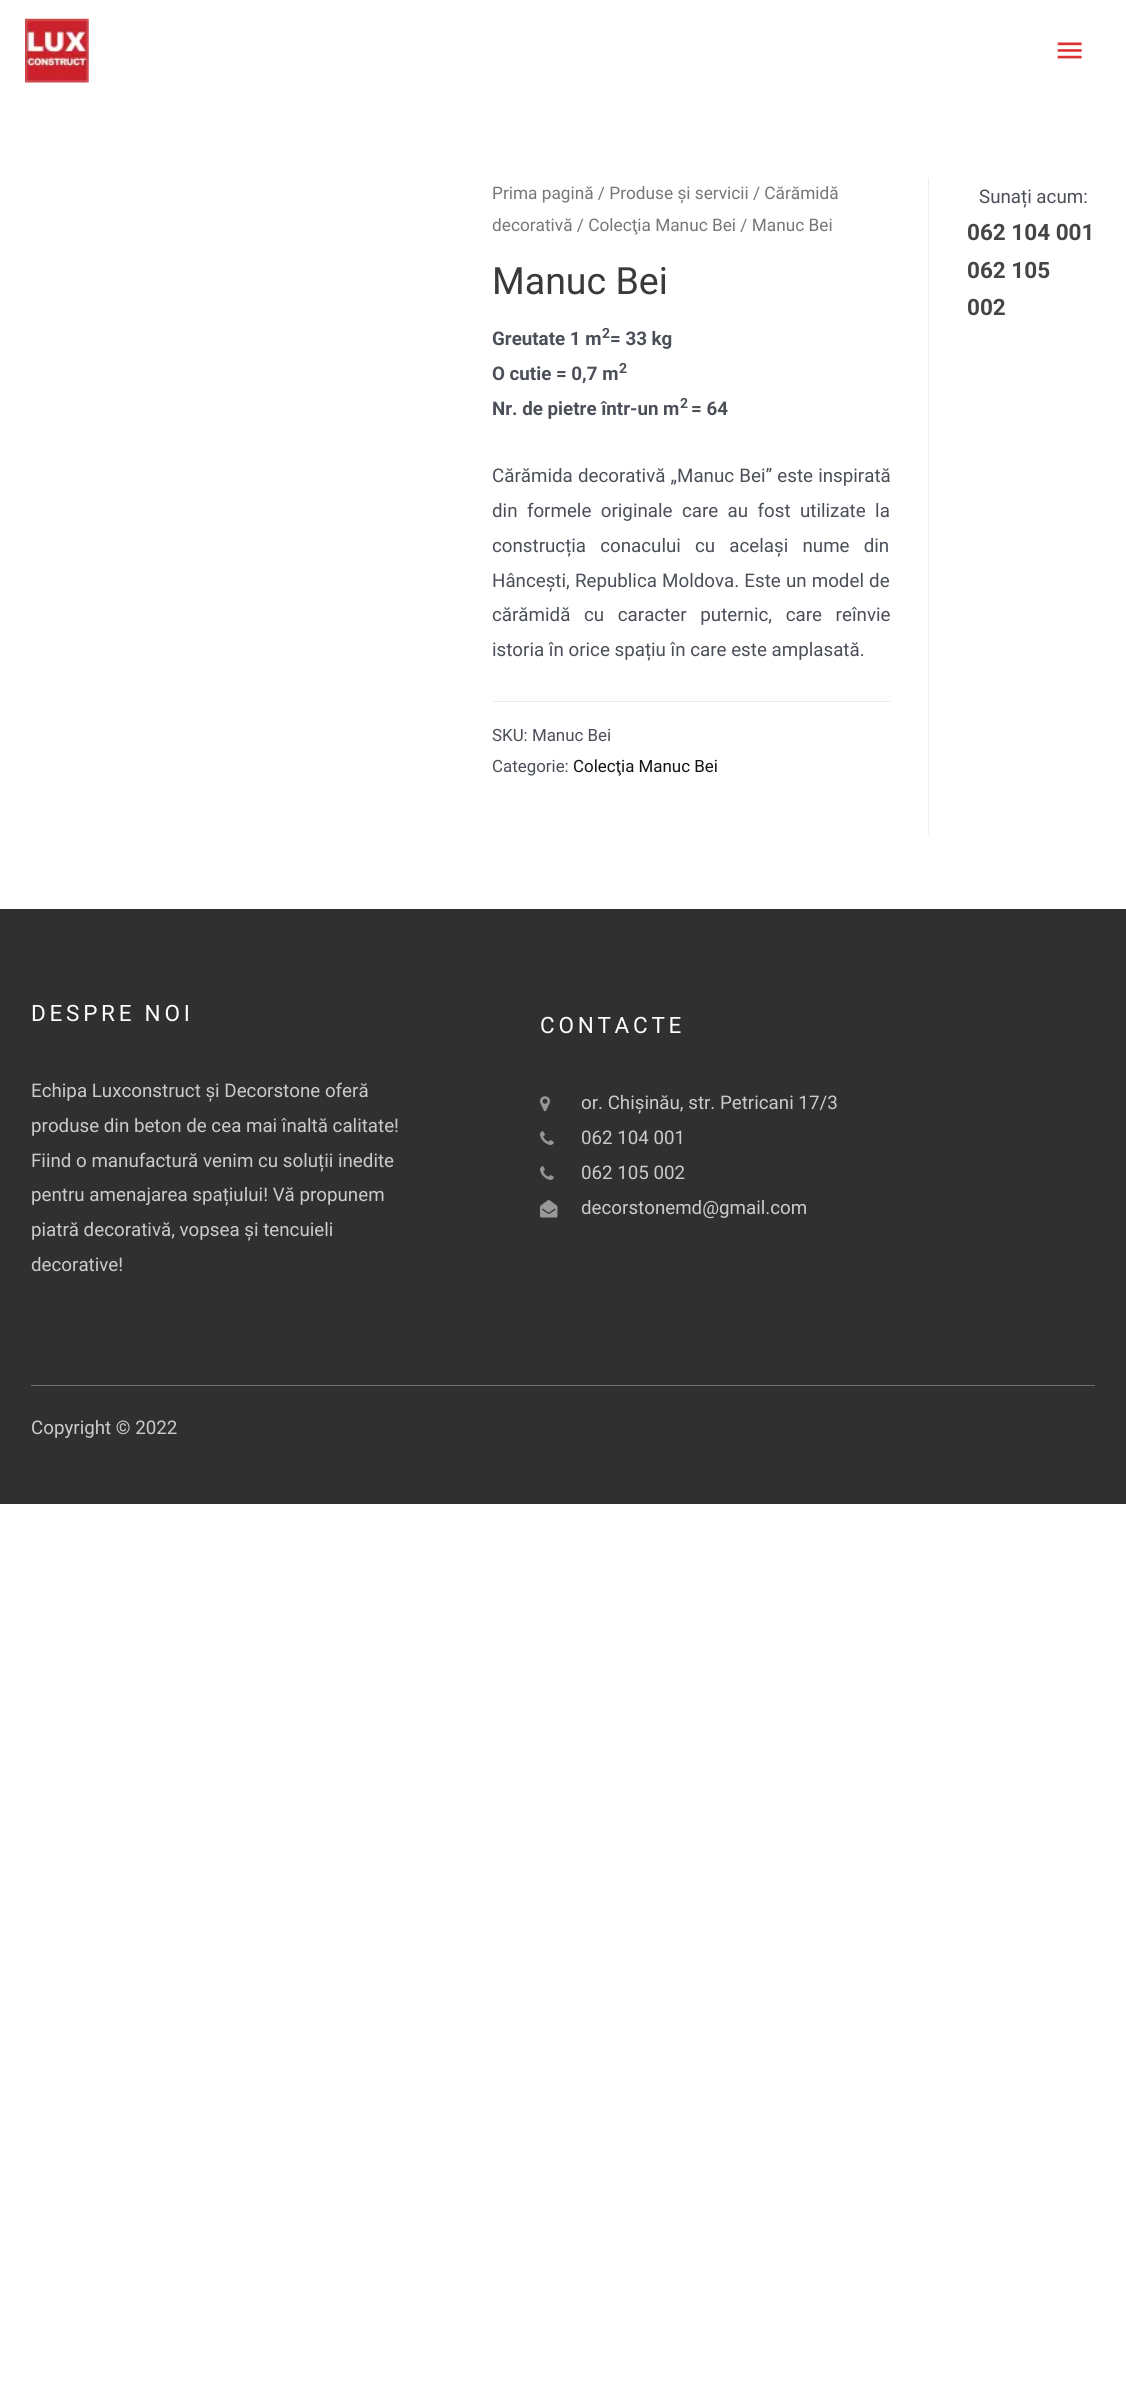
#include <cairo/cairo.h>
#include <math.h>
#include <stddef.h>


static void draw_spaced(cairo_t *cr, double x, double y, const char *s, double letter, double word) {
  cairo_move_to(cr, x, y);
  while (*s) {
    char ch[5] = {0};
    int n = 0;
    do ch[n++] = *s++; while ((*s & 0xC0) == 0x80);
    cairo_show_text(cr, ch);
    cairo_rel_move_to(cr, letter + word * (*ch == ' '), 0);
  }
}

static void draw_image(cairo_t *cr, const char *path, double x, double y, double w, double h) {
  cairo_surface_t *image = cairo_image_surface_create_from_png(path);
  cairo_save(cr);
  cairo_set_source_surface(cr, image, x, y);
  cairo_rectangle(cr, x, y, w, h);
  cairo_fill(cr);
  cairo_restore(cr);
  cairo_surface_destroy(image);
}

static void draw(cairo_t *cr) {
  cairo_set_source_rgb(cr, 1, 1, 1);
  cairo_paint(cr);
  draw_image(cr, "images/1.png", 25, 18, 64, 65);
  draw_image(cr, "images/2.png", 1057, 42, 25, 17);
  cairo_set_source_rgb(cr, 238 / 255.0, 238 / 255.0, 238 / 255.0);
  cairo_rectangle(cr, 928, 178, 1, 656);
  cairo_fill(cr);
  cairo_set_source_rgb(cr, 235 / 255.0, 235 / 255.0, 235 / 255.0);
  cairo_rectangle(cr, 493, 701, 397, 1);
  cairo_fill(cr);
  cairo_set_source_rgb(cr, 48 / 255.0, 48 / 255.0, 48 / 255.0);
  cairo_rectangle(cr, 0, 909, 1126, 595);
  cairo_fill(cr);
  draw_image(cr, "images/3.png", 540, 1096, 10, 16);
  draw_image(cr, "images/4.png", 540, 1131, 14, 14);
  draw_image(cr, "images/4.png", 540, 1166, 14, 14);
  draw_image(cr, "images/5.png", 540, 1200, 18, 18);
  cairo_set_source_rgb(cr, 112 / 255.0, 112 / 255.0, 112 / 255.0);
  cairo_rectangle(cr, 31, 1385, 1064, 1);
  cairo_fill(cr);
  cairo_select_font_face(cr, "Roboto", CAIRO_FONT_SLANT_NORMAL, CAIRO_FONT_WEIGHT_NORMAL);
  cairo_set_font_size(cr, 17.25);
  cairo_set_source_rgb(cr, 119 / 255.0, 119 / 255.0, 119 / 255.0);
  cairo_move_to(cr, 492, 199);
  cairo_show_text(cr, "Prima pagină / Produse și servicii / Cărămidă");
  cairo_move_to(cr, 492, 231);
  cairo_show_text(cr, "decorativă / Colecţia Manuc Bei / Manuc Bei");
  cairo_set_font_size(cr, 37.5);
  cairo_set_source_rgb(cr, 58 / 255.0, 58 / 255.0, 58 / 255.0);
  cairo_move_to(cr, 492, 294);
  cairo_show_text(cr, "Manuc Bei");
  cairo_select_font_face(cr, "Roboto", CAIRO_FONT_SLANT_NORMAL, CAIRO_FONT_WEIGHT_BOLD);
  cairo_set_font_size(cr, 18.75);
  cairo_set_source_rgb(cr, 75 / 255.0, 79 / 255.0, 88 / 255.0);
  cairo_move_to(cr, 492, 345);
  cairo_show_text(cr, "Greutate 1 m");
  cairo_set_font_size(cr, 14);
  cairo_move_to(cr, 602, 338);
  cairo_show_text(cr, "2");
  cairo_set_font_size(cr, 18.75);
  cairo_move_to(cr, 610, 345);
  cairo_show_text(cr, "= 33 kg");
  cairo_move_to(cr, 492, 380);
  cairo_show_text(cr, "O cutie = 0,7 m");
  cairo_set_font_size(cr, 14);
  cairo_move_to(cr, 619, 373);
  cairo_show_text(cr, "2");
  cairo_set_font_size(cr, 18.75);
  cairo_move_to(cr, 492, 415);
  cairo_show_text(cr, "Nr. de pietre într-un m");
  cairo_set_font_size(cr, 14);
  cairo_move_to(cr, 680, 408);
  cairo_show_text(cr, "2");
  cairo_set_font_size(cr, 18.75);
  cairo_move_to(cr, 691, 415);
  cairo_show_text(cr, "= 64");
  cairo_select_font_face(cr, "Roboto", CAIRO_FONT_SLANT_NORMAL, CAIRO_FONT_WEIGHT_NORMAL);
  draw_spaced(cr, 492, 482, "Cărămida decorativă „Manuc Bei” este inspirată", 0, 0.5);
  draw_spaced(cr, 492, 517, "din formele originale care au fost utilizate la", 0, 4.75);
  draw_spaced(cr, 492, 552, "construcția conacului cu același nume din", 0, 9.5);
  draw_spaced(cr, 492, 587, "Hâncești, Republica Moldova. Este un model de", 0, 0.5);
  draw_spaced(cr, 492, 621, "cărămidă cu caracter puternic, care reînvie", 0, 9);
  cairo_move_to(cr, 492, 656);
  cairo_show_text(cr, "istoria în orice spațiu în care este amplasată.");
  cairo_set_font_size(cr, 16.9);
  cairo_move_to(cr, 492, 741);
  cairo_show_text(cr, "SKU: Manuc Bei");
  cairo_move_to(cr, 492, 772);
  cairo_show_text(cr, "Categorie:");
  cairo_set_source_rgb(cr, 21 / 255.0, 21 / 255.0, 21 / 255.0);
  cairo_move_to(cr, 573, 772);
  cairo_show_text(cr, "Colecţia Manuc Bei");
  cairo_set_font_size(cr, 18.75);
  cairo_set_source_rgb(cr, 75 / 255.0, 79 / 255.0, 88 / 255.0);
  cairo_move_to(cr, 979, 203);
  cairo_show_text(cr, "Sunați acum:");
  cairo_select_font_face(cr, "Roboto", CAIRO_FONT_SLANT_NORMAL, CAIRO_FONT_WEIGHT_BOLD);
  cairo_set_font_size(cr, 22.5);
  cairo_set_source_rgb(cr, 69 / 255.0, 69 / 255.0, 69 / 255.0);
  cairo_move_to(cr, 967, 240);
  cairo_show_text(cr, "062 104 001");
  cairo_move_to(cr, 967, 278);
  cairo_show_text(cr, "062 105");
  cairo_move_to(cr, 967, 315);
  cairo_show_text(cr, "002");
  cairo_select_font_face(cr, "Roboto", CAIRO_FONT_SLANT_NORMAL, CAIRO_FONT_WEIGHT_NORMAL);
  cairo_set_source_rgb(cr, 1, 1, 1);
  draw_spaced(cr, 31, 1021, "DESPRE NOI", 3.75, 0);
  cairo_set_font_size(cr, 18.75);
  cairo_set_source_rgb(cr, 203 / 255.0, 203 / 255.0, 203 / 255.0);
  cairo_move_to(cr, 31, 1097);
  cairo_show_text(cr, "Echipa Luxconstruct și Decorstone oferă");
  cairo_move_to(cr, 31, 1132);
  cairo_show_text(cr, "produse din beton de cea mai înaltă calitate!");
  cairo_move_to(cr, 31, 1167);
  cairo_show_text(cr, "Fiind o manufactură venim cu soluții inedite");
  cairo_move_to(cr, 31, 1201);
  cairo_show_text(cr, "pentru amenajarea spațiului! Vă propunem");
  cairo_move_to(cr, 31, 1236);
  cairo_show_text(cr, "piatră decorativă, vopsea și tencuieli");
  cairo_move_to(cr, 31, 1271);
  cairo_show_text(cr, "decorative!");
  cairo_set_font_size(cr, 22.5);
  cairo_set_source_rgb(cr, 1, 1, 1);
  draw_spaced(cr, 540, 1033, "CONTACTE", 3.75, 0);
  cairo_set_font_size(cr, 18.75);
  cairo_set_source_rgb(cr, 203 / 255.0, 203 / 255.0, 203 / 255.0);
  cairo_move_to(cr, 581, 1109);
  cairo_show_text(cr, "or. Chișinău, str. Petricani 17/3");
  cairo_move_to(cr, 581, 1144);
  cairo_show_text(cr, "062 104 001");
  cairo_move_to(cr, 581, 1179);
  cairo_show_text(cr, "062 105 002");
  cairo_move_to(cr, 581, 1214);
  cairo_show_text(cr, "decorstonemd@gmail.com");
  cairo_move_to(cr, 31, 1434);
  cairo_show_text(cr, "Copyright © 2022");
}

int main(void) {
  cairo_surface_t *surface = cairo_image_surface_create(CAIRO_FORMAT_RGB24, 1126, 2386);
  cairo_t *cr = cairo_create(surface);
  cairo_font_options_t *options = cairo_font_options_create();
  cairo_font_options_set_hint_metrics(options, CAIRO_HINT_METRICS_OFF);
  cairo_font_options_set_hint_style(options, CAIRO_HINT_STYLE_NONE);
  cairo_set_font_options(cr, options);
  cairo_set_miter_limit(cr, 4);
  draw(cr);
  cairo_surface_write_to_png(surface, "out.png");
  cairo_font_options_destroy(options);
  cairo_destroy(cr);
  cairo_surface_destroy(surface);
  return 0;
}
